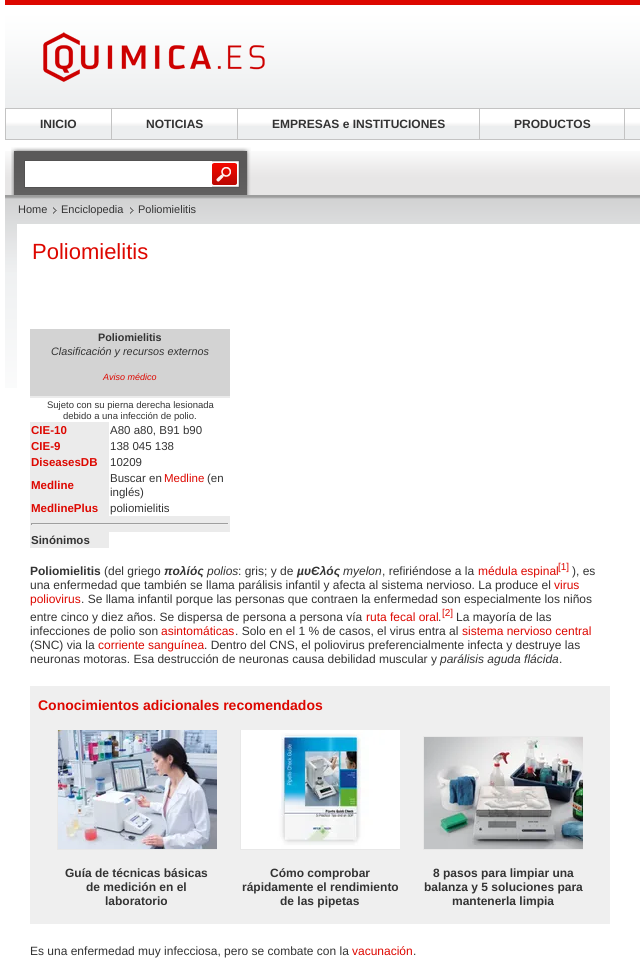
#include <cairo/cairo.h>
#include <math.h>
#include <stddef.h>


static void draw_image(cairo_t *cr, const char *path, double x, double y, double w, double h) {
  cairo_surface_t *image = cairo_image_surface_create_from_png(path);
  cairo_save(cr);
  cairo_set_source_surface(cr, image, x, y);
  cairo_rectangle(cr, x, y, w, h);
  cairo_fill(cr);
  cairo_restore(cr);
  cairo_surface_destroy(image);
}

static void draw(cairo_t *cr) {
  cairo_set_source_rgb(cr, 1, 1, 1);
  cairo_paint(cr);
  draw_image(cr, "images/1.png", 5, 0, 635, 139);
  draw_image(cr, "images/2.png", 43, 32, 222, 50);
  cairo_set_source_rgb(cr, 195 / 255.0, 195 / 255.0, 195 / 255.0);
  cairo_rectangle(cr, 5, 108, 635, 1);
  cairo_fill(cr);
  cairo_rectangle(cr, 5, 139, 635, 1);
  cairo_fill(cr);
  draw_image(cr, "images/3.png", 6, 109, 105, 17);
  cairo_rectangle(cr, 5, 109, 1, 30);
  cairo_fill(cr);
  draw_image(cr, "images/4.png", 112, 109, 125, 17);
  cairo_rectangle(cr, 111, 109, 1, 30);
  cairo_fill(cr);
  draw_image(cr, "images/5.png", 238, 109, 241, 17);
  cairo_rectangle(cr, 237, 109, 1, 30);
  cairo_fill(cr);
  draw_image(cr, "images/6.png", 480, 109, 144, 17);
  cairo_rectangle(cr, 479, 109, 1, 30);
  cairo_fill(cr);
  draw_image(cr, "images/7.png", 625, 109, 15, 17);
  cairo_rectangle(cr, 624, 109, 1, 30);
  cairo_fill(cr);
  draw_image(cr, "images/8.png", 5, 151, 635, 237);
  draw_image(cr, "images/9.png", 11, 147, 240, 48);
  cairo_set_source_rgb(cr, 1, 1, 1);
  cairo_rectangle(cr, 25, 161, 187, 26);
  cairo_fill(cr);
  cairo_set_source_rgb(cr, 83 / 255.0, 82 / 255.0, 82 / 255.0);
  cairo_rectangle(cr, 24, 160, 188, 1);
  cairo_fill(cr);
  cairo_rectangle(cr, 24, 187, 188, 1);
  cairo_fill(cr);
  cairo_rectangle(cr, 24, 160, 1, 28);
  cairo_fill(cr);
  draw_image(cr, "images/10.png", 212, 160, 28, 28);
  draw_image(cr, "images/11.png", 53, 207, 4, 7);
  draw_image(cr, "images/11.png", 130, 207, 4, 7);
  cairo_set_source_rgb(cr, 1, 1, 1);
  cairo_rectangle(cr, 17, 224, 623, 164);
  cairo_fill(cr);
  cairo_set_source_rgb(cr, 211 / 255.0, 211 / 255.0, 211 / 255.0);
  cairo_rectangle(cr, 30, 329, 200, 67);
  cairo_fill(cr);
  cairo_set_source_rgb(cr, 235 / 255.0, 235 / 255.0, 235 / 255.0);
  cairo_rectangle(cr, 30, 396, 200, 2);
  cairo_fill(cr);
  cairo_rectangle(cr, 30, 422, 79, 94);
  cairo_fill(cr);
  cairo_rectangle(cr, 30, 516, 200, 16);
  cairo_fill(cr);
  cairo_set_source_rgb(cr, 159 / 255.0, 159 / 255.0, 159 / 255.0);
  cairo_rectangle(cr, 31, 523, 198, 1);
  cairo_fill(cr);
  cairo_set_source_rgb(cr, 238 / 255.0, 238 / 255.0, 238 / 255.0);
  cairo_rectangle(cr, 228, 523, 1, 2);
  cairo_fill(cr);
  cairo_rectangle(cr, 31, 524, 198, 1);
  cairo_fill(cr);
  cairo_set_source_rgb(cr, 159 / 255.0, 159 / 255.0, 159 / 255.0);
  cairo_rectangle(cr, 31, 523, 1, 2);
  cairo_fill(cr);
  cairo_set_source_rgb(cr, 235 / 255.0, 235 / 255.0, 235 / 255.0);
  cairo_rectangle(cr, 30, 532, 79, 16);
  cairo_fill(cr);
  cairo_set_source_rgb(cr, 239 / 255.0, 239 / 255.0, 239 / 255.0);
  cairo_rectangle(cr, 30, 686, 580, 238);
  cairo_fill(cr);
  cairo_save(cr);
  cairo_rectangle(cr, 57, 730, 160, 120);
  cairo_clip(cr);
  cairo_rectangle(cr, 57.5, 728.5, 161, 121);
  cairo_set_source_rgb(cr, 232 / 255.0, 232 / 255.0, 232 / 255.0);
  cairo_set_line_width(cr, 1);
  cairo_stroke(cr);
  cairo_restore(cr);
  draw_image(cr, "images/12.png", 58, 730, 159, 119);
  cairo_save(cr);
  cairo_rectangle(cr, 240, 730, 160, 120);
  cairo_clip(cr);
  cairo_rectangle(cr, 240.5, 728.5, 161, 121);
  cairo_set_source_rgb(cr, 232 / 255.0, 232 / 255.0, 232 / 255.0);
  cairo_set_line_width(cr, 1);
  cairo_stroke(cr);
  cairo_restore(cr);
  draw_image(cr, "images/13.png", 241, 730, 159, 119);
  cairo_save(cr);
  cairo_rectangle(cr, 423, 730, 160, 120);
  cairo_clip(cr);
  cairo_rectangle(cr, 423.5, 736.5, 161, 113);
  cairo_set_source_rgb(cr, 232 / 255.0, 232 / 255.0, 232 / 255.0);
  cairo_set_line_width(cr, 1);
  cairo_stroke(cr);
  cairo_restore(cr);
  draw_image(cr, "images/14.png", 424, 737, 159, 112);
  cairo_select_font_face(cr, "Liberation Sans", CAIRO_FONT_SLANT_NORMAL, CAIRO_FONT_WEIGHT_BOLD);
  cairo_set_font_size(cr, 12);
  cairo_set_source_rgb(cr, 51 / 255.0, 51 / 255.0, 51 / 255.0);
  cairo_move_to(cr, 40, 128);
  cairo_show_text(cr, "INICIO");
  cairo_move_to(cr, 146, 128);
  cairo_show_text(cr, "NOTICIAS");
  cairo_move_to(cr, 272, 128);
  cairo_show_text(cr, "EMPRESAS e INSTITUCIONES");
  cairo_move_to(cr, 514, 128);
  cairo_show_text(cr, "PRODUCTOS");
  cairo_select_font_face(cr, "Liberation Sans", CAIRO_FONT_SLANT_NORMAL, CAIRO_FONT_WEIGHT_NORMAL);
  cairo_set_font_size(cr, 11);
  cairo_move_to(cr, 18, 213);
  cairo_show_text(cr, "Home");
  cairo_move_to(cr, 61, 213);
  cairo_show_text(cr, "Enciclopedia");
  cairo_move_to(cr, 138, 213);
  cairo_show_text(cr, "Poliomielitis");
  cairo_set_font_size(cr, 22);
  cairo_set_source_rgb(cr, 221 / 255.0, 7 / 255.0, 0);
  cairo_move_to(cr, 32, 259);
  cairo_show_text(cr, "Poliomielitis");
  cairo_select_font_face(cr, "Liberation Sans", CAIRO_FONT_SLANT_NORMAL, CAIRO_FONT_WEIGHT_BOLD);
  cairo_set_font_size(cr, 10.8);
  cairo_set_source_rgb(cr, 51 / 255.0, 51 / 255.0, 51 / 255.0);
  cairo_move_to(cr, 98, 341);
  cairo_show_text(cr, "Poliomielitis");
  cairo_select_font_face(cr, "Liberation Sans", CAIRO_FONT_SLANT_ITALIC, CAIRO_FONT_WEIGHT_NORMAL);
  cairo_move_to(cr, 51, 355);
  cairo_show_text(cr, "Clasificación y recursos externos");
  cairo_set_font_size(cr, 9);
  cairo_set_source_rgb(cr, 221 / 255.0, 7 / 255.0, 0);
  cairo_move_to(cr, 103, 380);
  cairo_show_text(cr, "Aviso médico");
  cairo_select_font_face(cr, "Liberation Sans", CAIRO_FONT_SLANT_NORMAL, CAIRO_FONT_WEIGHT_NORMAL);
  cairo_set_font_size(cr, 9.5);
  cairo_set_source_rgb(cr, 51 / 255.0, 51 / 255.0, 51 / 255.0);
  cairo_move_to(cr, 47, 408);
  cairo_show_text(cr, "Sujeto con su pierna derecha lesionada");
  cairo_move_to(cr, 63, 419);
  cairo_show_text(cr, "debido a una infección de polio.");
  cairo_select_font_face(cr, "Liberation Sans", CAIRO_FONT_SLANT_NORMAL, CAIRO_FONT_WEIGHT_BOLD);
  cairo_set_font_size(cr, 11.5);
  cairo_set_source_rgb(cr, 221 / 255.0, 7 / 255.0, 0);
  cairo_move_to(cr, 31, 434);
  cairo_show_text(cr, "CIE-10");
  cairo_select_font_face(cr, "Liberation Sans", CAIRO_FONT_SLANT_NORMAL, CAIRO_FONT_WEIGHT_NORMAL);
  cairo_set_source_rgb(cr, 51 / 255.0, 51 / 255.0, 51 / 255.0);
  cairo_move_to(cr, 110, 434);
  cairo_show_text(cr, "A80 a80, B91 b90");
  cairo_select_font_face(cr, "Liberation Sans", CAIRO_FONT_SLANT_NORMAL, CAIRO_FONT_WEIGHT_BOLD);
  cairo_set_source_rgb(cr, 221 / 255.0, 7 / 255.0, 0);
  cairo_move_to(cr, 31, 450);
  cairo_show_text(cr, "CIE-9");
  cairo_select_font_face(cr, "Liberation Sans", CAIRO_FONT_SLANT_NORMAL, CAIRO_FONT_WEIGHT_NORMAL);
  cairo_set_source_rgb(cr, 51 / 255.0, 51 / 255.0, 51 / 255.0);
  cairo_move_to(cr, 110, 450);
  cairo_show_text(cr, "138 045 138");
  cairo_select_font_face(cr, "Liberation Sans", CAIRO_FONT_SLANT_NORMAL, CAIRO_FONT_WEIGHT_BOLD);
  cairo_set_source_rgb(cr, 221 / 255.0, 7 / 255.0, 0);
  cairo_move_to(cr, 31, 466);
  cairo_show_text(cr, "DiseasesDB");
  cairo_select_font_face(cr, "Liberation Sans", CAIRO_FONT_SLANT_NORMAL, CAIRO_FONT_WEIGHT_NORMAL);
  cairo_set_source_rgb(cr, 51 / 255.0, 51 / 255.0, 51 / 255.0);
  cairo_move_to(cr, 110, 466);
  cairo_show_text(cr, "10209");
  cairo_select_font_face(cr, "Liberation Sans", CAIRO_FONT_SLANT_NORMAL, CAIRO_FONT_WEIGHT_BOLD);
  cairo_set_source_rgb(cr, 221 / 255.0, 7 / 255.0, 0);
  cairo_move_to(cr, 31, 489);
  cairo_show_text(cr, "Medline");
  cairo_select_font_face(cr, "Liberation Sans", CAIRO_FONT_SLANT_NORMAL, CAIRO_FONT_WEIGHT_NORMAL);
  cairo_set_source_rgb(cr, 51 / 255.0, 51 / 255.0, 51 / 255.0);
  cairo_move_to(cr, 110, 482);
  cairo_show_text(cr, "Buscar en");
  cairo_set_source_rgb(cr, 221 / 255.0, 7 / 255.0, 0);
  cairo_move_to(cr, 164, 482);
  cairo_show_text(cr, "Medline");
  cairo_set_source_rgb(cr, 51 / 255.0, 51 / 255.0, 51 / 255.0);
  cairo_move_to(cr, 207, 482);
  cairo_show_text(cr, "(en");
  cairo_move_to(cr, 110, 496);
  cairo_show_text(cr, "inglés)");
  cairo_select_font_face(cr, "Liberation Sans", CAIRO_FONT_SLANT_NORMAL, CAIRO_FONT_WEIGHT_BOLD);
  cairo_set_source_rgb(cr, 221 / 255.0, 7 / 255.0, 0);
  cairo_move_to(cr, 31, 512);
  cairo_show_text(cr, "MedlinePlus");
  cairo_select_font_face(cr, "Liberation Sans", CAIRO_FONT_SLANT_NORMAL, CAIRO_FONT_WEIGHT_NORMAL);
  cairo_set_source_rgb(cr, 51 / 255.0, 51 / 255.0, 51 / 255.0);
  cairo_move_to(cr, 110, 512);
  cairo_show_text(cr, "poliomielitis");
  cairo_select_font_face(cr, "Liberation Sans", CAIRO_FONT_SLANT_NORMAL, CAIRO_FONT_WEIGHT_BOLD);
  cairo_move_to(cr, 31, 544);
  cairo_show_text(cr, "Sinónimos");
  cairo_set_font_size(cr, 12);
  cairo_move_to(cr, 30, 575);
  cairo_show_text(cr, "Poliomielitis");
  cairo_select_font_face(cr, "Liberation Sans", CAIRO_FONT_SLANT_NORMAL, CAIRO_FONT_WEIGHT_NORMAL);
  cairo_move_to(cr, 104, 575);
  cairo_show_text(cr, "(del griego");
  cairo_select_font_face(cr, "Liberation Sans", CAIRO_FONT_SLANT_ITALIC, CAIRO_FONT_WEIGHT_BOLD);
  cairo_move_to(cr, 164, 575);
  cairo_show_text(cr, "πολίός");
  cairo_select_font_face(cr, "Liberation Sans", CAIRO_FONT_SLANT_ITALIC, CAIRO_FONT_WEIGHT_NORMAL);
  cairo_move_to(cr, 207, 575);
  cairo_show_text(cr, "polios");
  cairo_select_font_face(cr, "Liberation Sans", CAIRO_FONT_SLANT_NORMAL, CAIRO_FONT_WEIGHT_NORMAL);
  cairo_move_to(cr, 238, 575);
  cairo_show_text(cr, ": gris; y de");
  cairo_select_font_face(cr, "Liberation Sans", CAIRO_FONT_SLANT_ITALIC, CAIRO_FONT_WEIGHT_BOLD);
  cairo_move_to(cr, 297, 575);
  cairo_show_text(cr, "µυЄλός");
  cairo_select_font_face(cr, "Liberation Sans", CAIRO_FONT_SLANT_ITALIC, CAIRO_FONT_WEIGHT_NORMAL);
  cairo_move_to(cr, 343, 575);
  cairo_show_text(cr, "myelon");
  cairo_select_font_face(cr, "Liberation Sans", CAIRO_FONT_SLANT_NORMAL, CAIRO_FONT_WEIGHT_NORMAL);
  cairo_move_to(cr, 382, 575);
  cairo_show_text(cr, ", refiriéndose a la");
  cairo_set_source_rgb(cr, 221 / 255.0, 7 / 255.0, 0);
  cairo_move_to(cr, 478, 575);
  cairo_show_text(cr, "médula espinal");
  cairo_set_font_size(cr, 10);
  cairo_move_to(cr, 558, 570);
  cairo_show_text(cr, "[1]");
  cairo_set_font_size(cr, 12);
  cairo_set_source_rgb(cr, 51 / 255.0, 51 / 255.0, 51 / 255.0);
  cairo_move_to(cr, 572, 575);
  cairo_show_text(cr, "), es");
  cairo_move_to(cr, 30, 589);
  cairo_show_text(cr, "una enfermedad que también se llama parálisis infantil y afecta al sistema nervioso. La produce el");
  cairo_set_source_rgb(cr, 221 / 255.0, 7 / 255.0, 0);
  cairo_move_to(cr, 554, 589);
  cairo_show_text(cr, "virus");
  cairo_move_to(cr, 30, 603);
  cairo_show_text(cr, "poliovirus");
  cairo_set_source_rgb(cr, 51 / 255.0, 51 / 255.0, 51 / 255.0);
  cairo_move_to(cr, 81, 603);
  cairo_show_text(cr, ". Se llama infantil porque las personas que contraen la enfermedad son especialmente los niños");
  cairo_move_to(cr, 30, 621);
  cairo_show_text(cr, "entre cinco y diez años. Se dispersa de persona a persona vía");
  cairo_set_source_rgb(cr, 221 / 255.0, 7 / 255.0, 0);
  cairo_move_to(cr, 366, 621);
  cairo_show_text(cr, "ruta fecal oral");
  cairo_set_source_rgb(cr, 51 / 255.0, 51 / 255.0, 51 / 255.0);
  cairo_move_to(cr, 438, 621);
  cairo_show_text(cr, ".");
  cairo_set_font_size(cr, 10);
  cairo_set_source_rgb(cr, 221 / 255.0, 7 / 255.0, 0);
  cairo_move_to(cr, 442, 616);
  cairo_show_text(cr, "[2]");
  cairo_set_font_size(cr, 12);
  cairo_set_source_rgb(cr, 51 / 255.0, 51 / 255.0, 51 / 255.0);
  cairo_move_to(cr, 456, 621);
  cairo_show_text(cr, "La mayoría de las");
  cairo_move_to(cr, 30, 635);
  cairo_show_text(cr, "infecciones de polio son");
  cairo_set_source_rgb(cr, 221 / 255.0, 7 / 255.0, 0);
  cairo_move_to(cr, 161, 635);
  cairo_show_text(cr, "asintomáticas");
  cairo_set_source_rgb(cr, 51 / 255.0, 51 / 255.0, 51 / 255.0);
  cairo_move_to(cr, 235, 635);
  cairo_show_text(cr, ". Solo en el 1 % de casos, el virus entra al");
  cairo_set_source_rgb(cr, 221 / 255.0, 7 / 255.0, 0);
  cairo_move_to(cr, 462, 635);
  cairo_show_text(cr, "sistema nervioso central");
  cairo_set_source_rgb(cr, 51 / 255.0, 51 / 255.0, 51 / 255.0);
  cairo_move_to(cr, 30, 649);
  cairo_show_text(cr, "(SNC) via la");
  cairo_set_source_rgb(cr, 221 / 255.0, 7 / 255.0, 0);
  cairo_move_to(cr, 98, 649);
  cairo_show_text(cr, "corriente sanguínea");
  cairo_set_source_rgb(cr, 51 / 255.0, 51 / 255.0, 51 / 255.0);
  cairo_move_to(cr, 204, 649);
  cairo_show_text(cr, ". Dentro del CNS, el poliovirus preferencialmente infecta y destruye las");
  cairo_move_to(cr, 30, 663);
  cairo_show_text(cr, "neuronas motoras. Esa destrucción de neuronas causa debilidad muscular y");
  cairo_select_font_face(cr, "Liberation Sans", CAIRO_FONT_SLANT_ITALIC, CAIRO_FONT_WEIGHT_NORMAL);
  cairo_move_to(cr, 440, 663);
  cairo_show_text(cr, "parálisis aguda flácida");
  cairo_select_font_face(cr, "Liberation Sans", CAIRO_FONT_SLANT_NORMAL, CAIRO_FONT_WEIGHT_NORMAL);
  cairo_move_to(cr, 559, 663);
  cairo_show_text(cr, ".");
  cairo_select_font_face(cr, "Liberation Sans", CAIRO_FONT_SLANT_NORMAL, CAIRO_FONT_WEIGHT_BOLD);
  cairo_set_font_size(cr, 14);
  cairo_set_source_rgb(cr, 221 / 255.0, 7 / 255.0, 0);
  cairo_move_to(cr, 38, 710);
  cairo_show_text(cr, "Conocimientos adicionales recomendados");
  cairo_set_font_size(cr, 12);
  cairo_set_source_rgb(cr, 51 / 255.0, 51 / 255.0, 51 / 255.0);
  cairo_move_to(cr, 65, 877);
  cairo_show_text(cr, "Guía de técnicas básicas");
  cairo_move_to(cr, 86, 891);
  cairo_show_text(cr, "de medición en el");
  cairo_move_to(cr, 105, 905);
  cairo_show_text(cr, "laboratorio");
  cairo_move_to(cr, 270, 877);
  cairo_show_text(cr, "Cómo comprobar");
  cairo_move_to(cr, 242, 891);
  cairo_show_text(cr, "rápidamente el rendimiento");
  cairo_move_to(cr, 280, 905);
  cairo_show_text(cr, "de las pipetas");
  cairo_move_to(cr, 433, 877);
  cairo_show_text(cr, "8 pasos para limpiar una");
  cairo_move_to(cr, 424, 891);
  cairo_show_text(cr, "balanza y 5 soluciones para");
  cairo_move_to(cr, 452, 905);
  cairo_show_text(cr, "mantenerla limpia");
  cairo_select_font_face(cr, "Liberation Sans", CAIRO_FONT_SLANT_NORMAL, CAIRO_FONT_WEIGHT_NORMAL);
  cairo_move_to(cr, 30, 955);
  cairo_show_text(cr, "Es una enfermedad muy infecciosa, pero se combate con la");
  cairo_set_source_rgb(cr, 221 / 255.0, 7 / 255.0, 0);
  cairo_move_to(cr, 352, 955);
  cairo_show_text(cr, "vacunación");
  cairo_set_source_rgb(cr, 51 / 255.0, 51 / 255.0, 51 / 255.0);
  cairo_move_to(cr, 413, 955);
  cairo_show_text(cr, ".");
}

int main(void) {
  cairo_surface_t *surface = cairo_image_surface_create(CAIRO_FORMAT_RGB24, 640, 969);
  cairo_t *cr = cairo_create(surface);
  cairo_font_options_t *options = cairo_font_options_create();
  cairo_font_options_set_hint_metrics(options, CAIRO_HINT_METRICS_OFF);
  cairo_font_options_set_hint_style(options, CAIRO_HINT_STYLE_NONE);
  cairo_set_font_options(cr, options);
  cairo_set_miter_limit(cr, 4);
  draw(cr);
  cairo_surface_write_to_png(surface, "out.png");
  cairo_font_options_destroy(options);
  cairo_destroy(cr);
  cairo_surface_destroy(surface);
  return 0;
}
